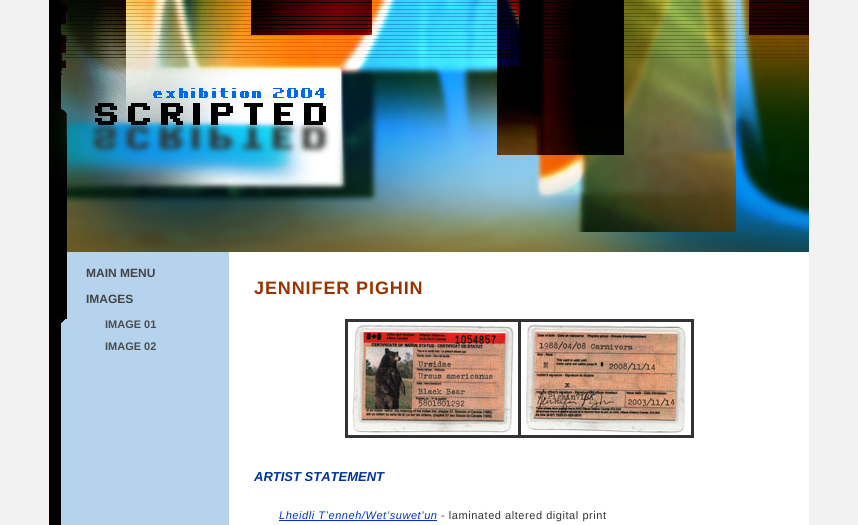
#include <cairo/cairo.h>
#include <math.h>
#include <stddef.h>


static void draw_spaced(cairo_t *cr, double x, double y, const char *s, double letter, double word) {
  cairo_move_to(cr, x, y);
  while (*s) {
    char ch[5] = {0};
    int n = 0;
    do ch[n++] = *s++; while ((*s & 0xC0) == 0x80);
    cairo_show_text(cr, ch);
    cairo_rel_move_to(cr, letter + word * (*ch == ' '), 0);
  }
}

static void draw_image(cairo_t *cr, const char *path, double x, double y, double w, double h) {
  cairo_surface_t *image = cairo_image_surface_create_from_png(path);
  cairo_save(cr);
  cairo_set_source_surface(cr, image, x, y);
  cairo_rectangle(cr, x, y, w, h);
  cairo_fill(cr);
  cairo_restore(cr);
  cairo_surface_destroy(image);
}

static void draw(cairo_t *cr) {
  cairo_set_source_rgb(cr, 242 / 255.0, 242 / 255.0, 242 / 255.0);
  cairo_paint(cr);
  draw_image(cr, "images/1.png", 49, 0, 760, 252);
  draw_image(cr, "images/2.png", 49, 252, 18, 273);
  draw_image(cr, "images/3.png", 57, 252, 10, 72);
  cairo_set_source_rgb(cr, 181 / 255.0, 211 / 255.0, 237 / 255.0);
  cairo_rectangle(cr, 67, 252, 162, 273);
  cairo_fill(cr);
  cairo_set_source_rgb(cr, 1, 1, 1);
  cairo_rectangle(cr, 229, 252, 580, 273);
  cairo_fill(cr);
  cairo_set_source_rgb(cr, 51 / 255.0, 51 / 255.0, 51 / 255.0);
  cairo_rectangle(cr, 345, 319, 349, 119);
  cairo_fill(cr);
  draw_image(cr, "images/4.png", 348, 322, 170, 113);
  draw_image(cr, "images/5.png", 521, 322, 170, 113);
  cairo_set_source_rgb(cr, 0, 51 / 255.0, 204 / 255.0);
  cairo_rectangle(cr, 279, 520, 158, 1);
  cairo_fill(cr);
  cairo_select_font_face(cr, "Liberation Sans", CAIRO_FONT_SLANT_NORMAL, CAIRO_FONT_WEIGHT_BOLD);
  cairo_set_font_size(cr, 12);
  cairo_set_source_rgb(cr, 68 / 255.0, 68 / 255.0, 68 / 255.0);
  cairo_move_to(cr, 86, 277);
  cairo_show_text(cr, "MAIN MENU");
  cairo_move_to(cr, 86, 303);
  cairo_show_text(cr, "IMAGES");
  cairo_set_font_size(cr, 11);
  cairo_set_source_rgb(cr, 76 / 255.0, 76 / 255.0, 76 / 255.0);
  cairo_move_to(cr, 105, 328);
  cairo_show_text(cr, "IMAGE 01");
  cairo_move_to(cr, 105, 350);
  cairo_show_text(cr, "IMAGE 02");
  cairo_set_font_size(cr, 18);
  cairo_set_source_rgb(cr, 153 / 255.0, 51 / 255.0, 0);
  draw_spaced(cr, 254, 294, "JENNIFER PIGHIN", 0.9, 0);
  cairo_select_font_face(cr, "Liberation Sans", CAIRO_FONT_SLANT_ITALIC, CAIRO_FONT_WEIGHT_BOLD);
  cairo_set_font_size(cr, 13);
  cairo_set_source_rgb(cr, 0, 51 / 255.0, 153 / 255.0);
  cairo_move_to(cr, 254, 481);
  cairo_show_text(cr, "ARTIST STATEMENT");
  cairo_select_font_face(cr, "Liberation Sans", CAIRO_FONT_SLANT_ITALIC, CAIRO_FONT_WEIGHT_NORMAL);
  cairo_set_font_size(cr, 11);
  cairo_set_source_rgb(cr, 0, 51 / 255.0, 204 / 255.0);
  draw_spaced(cr, 279, 519, "Lheidli T’enneh/Wet’suwet’un", 0.55, 0);
  cairo_select_font_face(cr, "Liberation Sans", CAIRO_FONT_SLANT_NORMAL, CAIRO_FONT_WEIGHT_NORMAL);
  cairo_set_source_rgb(cr, 51 / 255.0, 51 / 255.0, 51 / 255.0);
  draw_spaced(cr, 441, 519, "- laminated altered digital print", 0.55, 0);
}

int main(void) {
  cairo_surface_t *surface = cairo_image_surface_create(CAIRO_FORMAT_RGB24, 858, 525);
  cairo_t *cr = cairo_create(surface);
  cairo_font_options_t *options = cairo_font_options_create();
  cairo_font_options_set_hint_metrics(options, CAIRO_HINT_METRICS_OFF);
  cairo_font_options_set_hint_style(options, CAIRO_HINT_STYLE_NONE);
  cairo_set_font_options(cr, options);
  cairo_set_miter_limit(cr, 4);
  draw(cr);
  cairo_surface_write_to_png(surface, "out.png");
  cairo_font_options_destroy(options);
  cairo_destroy(cr);
  cairo_surface_destroy(surface);
  return 0;
}
